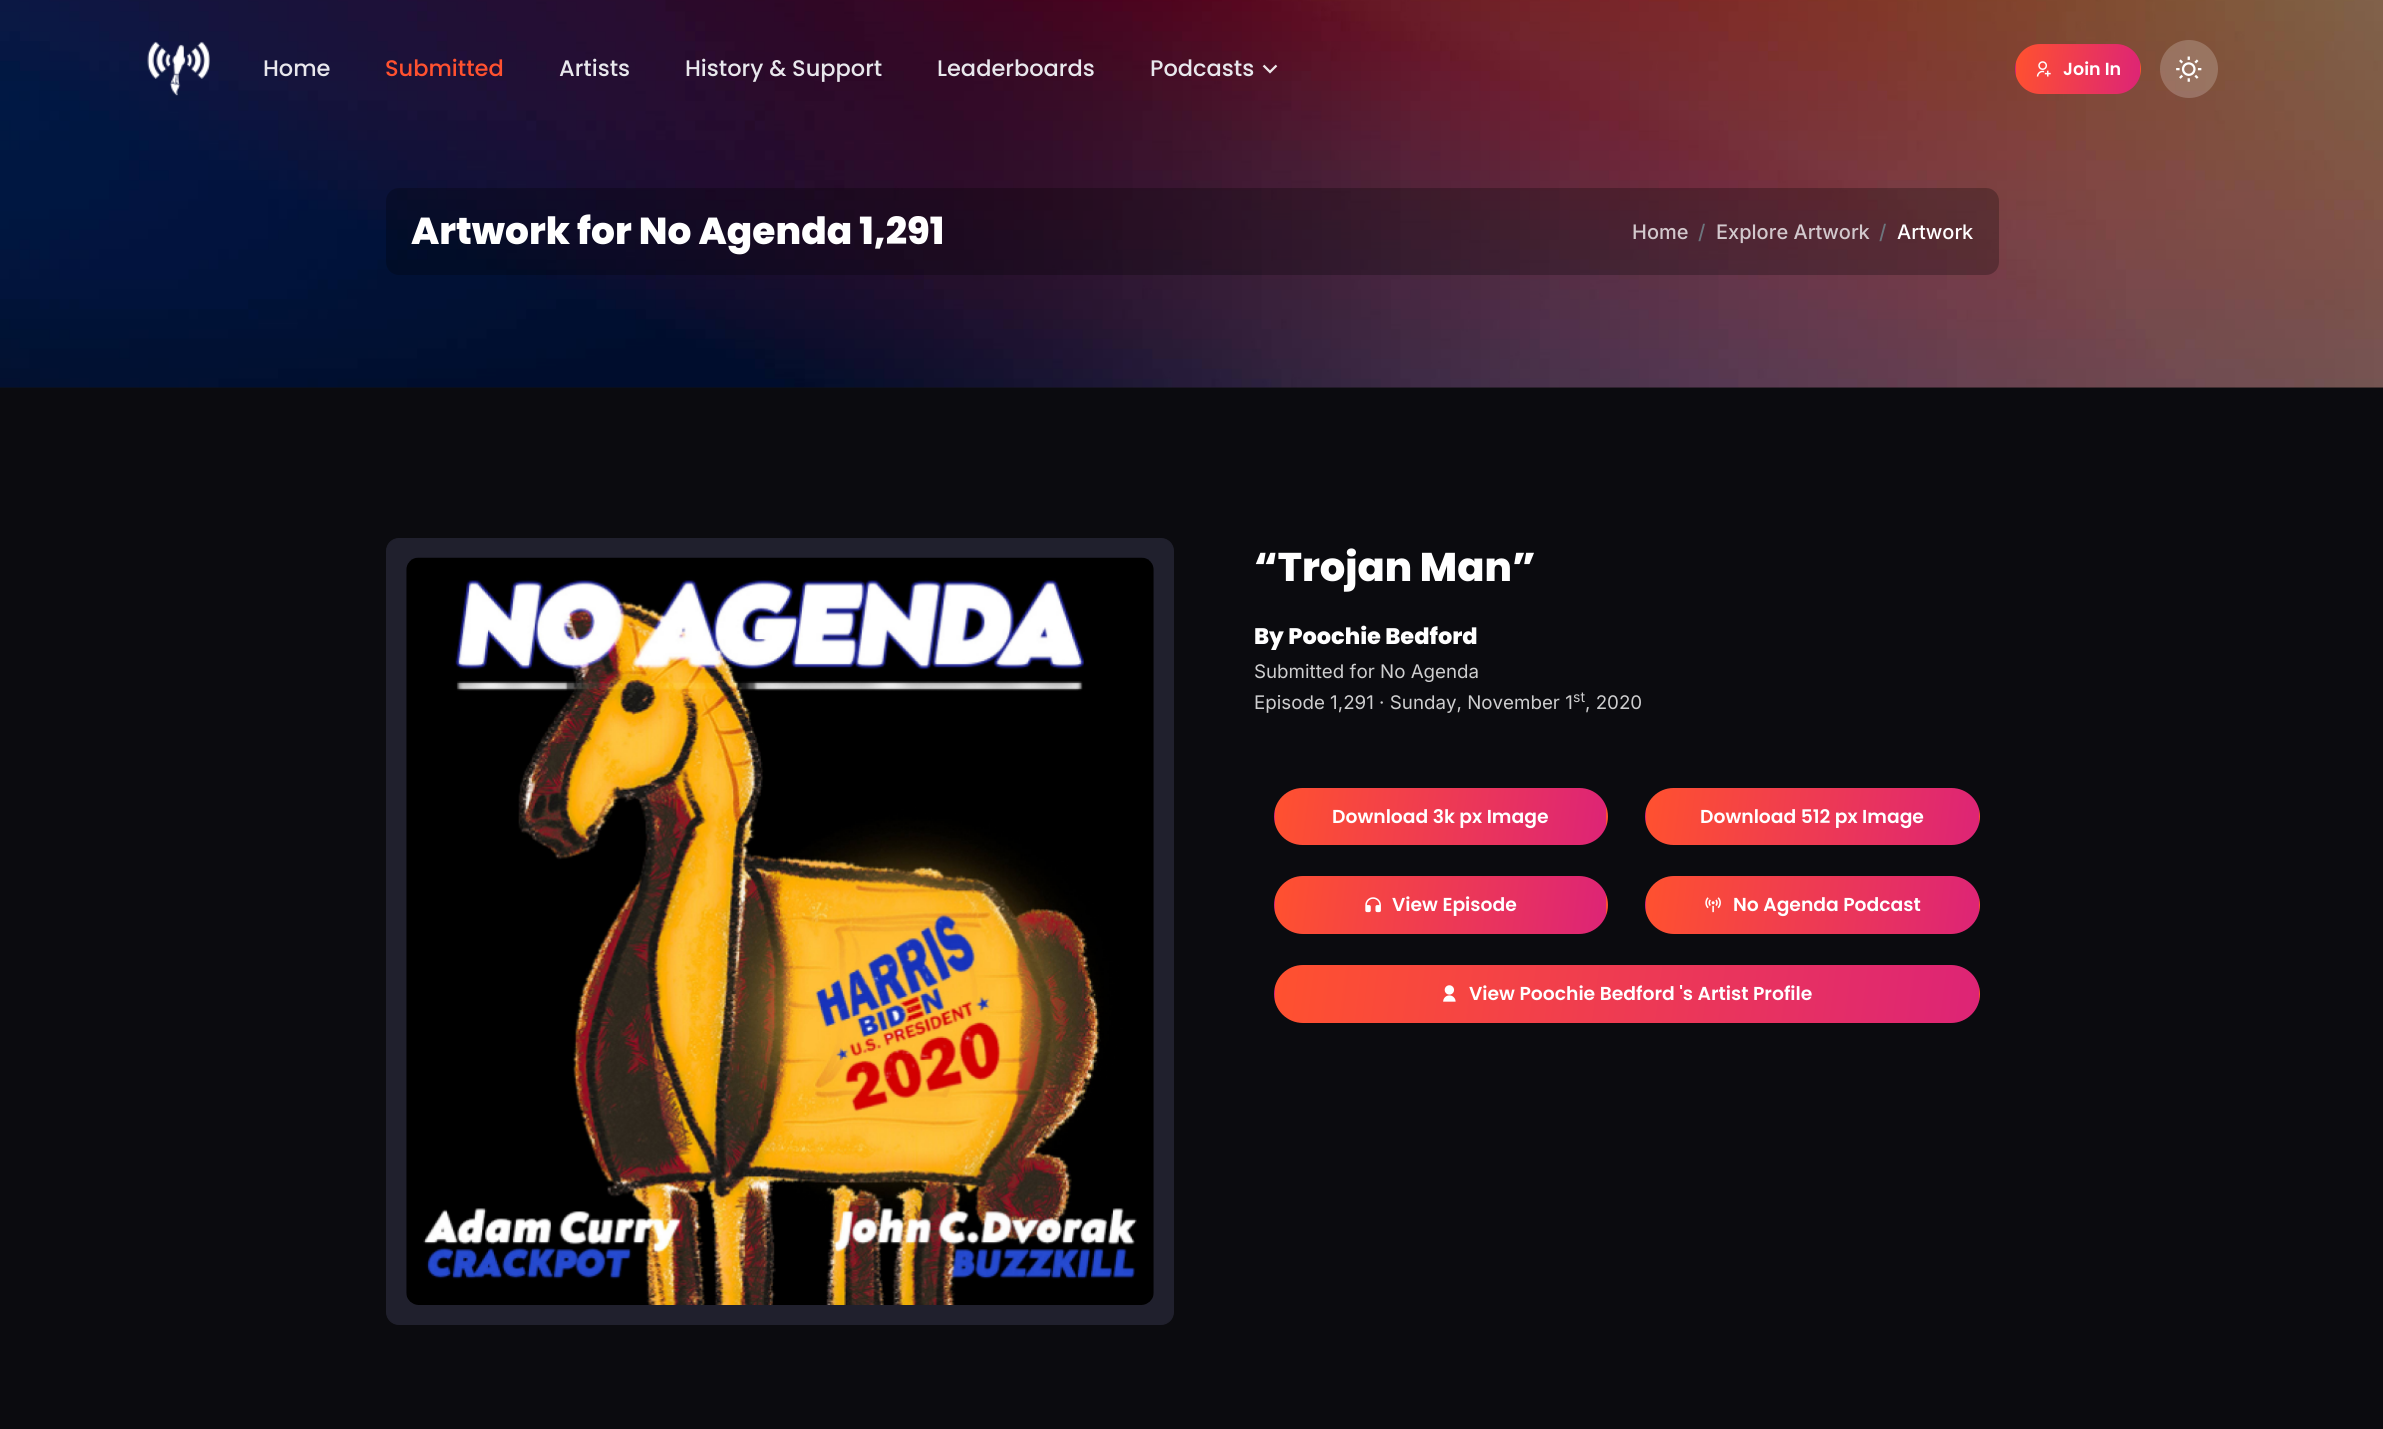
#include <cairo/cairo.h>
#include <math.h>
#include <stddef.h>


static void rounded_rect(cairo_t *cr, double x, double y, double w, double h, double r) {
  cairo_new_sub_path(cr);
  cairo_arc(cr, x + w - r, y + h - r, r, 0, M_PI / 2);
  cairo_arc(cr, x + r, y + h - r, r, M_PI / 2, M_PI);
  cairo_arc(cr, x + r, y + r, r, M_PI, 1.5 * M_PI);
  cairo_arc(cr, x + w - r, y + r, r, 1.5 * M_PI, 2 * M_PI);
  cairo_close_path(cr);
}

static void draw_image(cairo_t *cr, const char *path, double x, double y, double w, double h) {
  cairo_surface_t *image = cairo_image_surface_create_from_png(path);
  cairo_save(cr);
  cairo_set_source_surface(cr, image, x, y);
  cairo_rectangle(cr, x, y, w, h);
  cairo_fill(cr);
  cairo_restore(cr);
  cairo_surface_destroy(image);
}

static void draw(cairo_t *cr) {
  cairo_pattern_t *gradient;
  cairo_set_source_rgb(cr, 16 / 255.0, 16 / 255.0, 16 / 255.0);
  cairo_paint(cr);
  draw_image(cr, "images/5.png", 0, 0, 2383, 388);
  draw_image(cr, "images/1.png", 147, 41, 63, 55);
  draw_image(cr, "images/2.png", 1262, 64, 16, 10);
  cairo_save(cr);
  rounded_rect(cr, 2015, 44, 126, 50, 25);
  cairo_clip(cr);
  gradient = cairo_pattern_create_linear(2014, 13, 2142, 29);
  cairo_pattern_add_color_stop_rgba(gradient, 0, 1, 81 / 255.0, 47 / 255.0, 1);
  cairo_pattern_add_color_stop_rgba(gradient, 1, 221 / 255.0, 36 / 255.0, 118 / 255.0, 1);
  cairo_set_source(cr, gradient);
  cairo_pattern_destroy(gradient);
  cairo_rectangle(cr, 2033, 44, 90, 1);
  cairo_fill(cr);
  gradient = cairo_pattern_create_linear(1891, 61, 2018, 77);
  cairo_pattern_add_color_stop_rgba(gradient, 0, 1, 81 / 255.0, 47 / 255.0, 1);
  cairo_pattern_add_color_stop_rgba(gradient, 1, 221 / 255.0, 36 / 255.0, 118 / 255.0, 1);
  cairo_set_source(cr, gradient);
  cairo_pattern_destroy(gradient);
  cairo_rectangle(cr, 2015, 62, 1, 14);
  cairo_fill(cr);
  gradient = cairo_pattern_create_linear(2014, 61, 2142, 77);
  cairo_pattern_add_color_stop_rgba(gradient, 0, 1, 81 / 255.0, 47 / 255.0, 1);
  cairo_pattern_add_color_stop_rgba(gradient, 1, 221 / 255.0, 36 / 255.0, 118 / 255.0, 1);
  cairo_set_source(cr, gradient);
  cairo_pattern_destroy(gradient);
  cairo_rectangle(cr, 2016, 45, 124, 48);
  cairo_fill(cr);
  gradient = cairo_pattern_create_linear(2138, 61, 2266, 77);
  cairo_pattern_add_color_stop_rgba(gradient, 0, 1, 81 / 255.0, 47 / 255.0, 1);
  cairo_pattern_add_color_stop_rgba(gradient, 1, 221 / 255.0, 36 / 255.0, 118 / 255.0, 1);
  cairo_set_source(cr, gradient);
  cairo_pattern_destroy(gradient);
  cairo_rectangle(cr, 2140, 62, 1, 14);
  cairo_fill(cr);
  gradient = cairo_pattern_create_linear(2014, 108, 2142, 124);
  cairo_pattern_add_color_stop_rgba(gradient, 0, 1, 81 / 255.0, 47 / 255.0, 1);
  cairo_pattern_add_color_stop_rgba(gradient, 1, 221 / 255.0, 36 / 255.0, 118 / 255.0, 1);
  cairo_set_source(cr, gradient);
  cairo_pattern_destroy(gradient);
  cairo_rectangle(cr, 2033, 93, 90, 1);
  cairo_fill(cr);
  cairo_restore(cr);
  draw_image(cr, "images/3.png", 2036, 61, 15, 16);
  cairo_set_source_rgba(cr, 1, 1, 1, 0.2);
  cairo_arc(cr, 2189, 69, 29, 0, 2 * M_PI);
  cairo_fill(cr);
  draw_image(cr, "images/4.png", 2176, 56, 26, 26);
  cairo_set_source_rgba(cr, 0, 0, 0, 0.25);
  rounded_rect(cr, 386, 188, 1613, 87, 13);
  cairo_fill(cr);
  cairo_set_source_rgb(cr, 11 / 255.0, 11 / 255.0, 15 / 255.0);
  cairo_rectangle(cr, 0, 388, 2383, 1041);
  cairo_fill(cr);
  cairo_set_source_rgb(cr, 32 / 255.0, 32 / 255.0, 45 / 255.0);
  rounded_rect(cr, 386.5, 538.5, 787, 786, 12.5);
  cairo_fill_preserve(cr);
  cairo_set_line_width(cr, 1);
  cairo_stroke(cr);
  draw_image(cr, "images/6.png", 406, 557, 748, 748);
  cairo_save(cr);
  rounded_rect(cr, 1274, 788, 334, 57, 28.5);
  cairo_clip(cr);
  gradient = cairo_pattern_create_linear(1274, 740, 1607, 783);
  cairo_pattern_add_color_stop_rgba(gradient, 0, 1, 81 / 255.0, 47 / 255.0, 1);
  cairo_pattern_add_color_stop_rgba(gradient, 1, 221 / 255.0, 36 / 255.0, 118 / 255.0, 1);
  cairo_set_source(cr, gradient);
  cairo_pattern_destroy(gradient);
  cairo_rectangle(cr, 1295, 788, 292, 1);
  cairo_fill(cr);
  gradient = cairo_pattern_create_linear(943, 795, 1276, 838);
  cairo_pattern_add_color_stop_rgba(gradient, 0, 1, 81 / 255.0, 47 / 255.0, 1);
  cairo_pattern_add_color_stop_rgba(gradient, 1, 221 / 255.0, 36 / 255.0, 118 / 255.0, 1);
  cairo_set_source(cr, gradient);
  cairo_pattern_destroy(gradient);
  cairo_rectangle(cr, 1274, 809, 1, 15);
  cairo_fill(cr);
  gradient = cairo_pattern_create_linear(1274, 795, 1607, 838);
  cairo_pattern_add_color_stop_rgba(gradient, 0, 1, 81 / 255.0, 47 / 255.0, 1);
  cairo_pattern_add_color_stop_rgba(gradient, 1, 221 / 255.0, 36 / 255.0, 118 / 255.0, 1);
  cairo_set_source(cr, gradient);
  cairo_pattern_destroy(gradient);
  cairo_rectangle(cr, 1275, 789, 331, 55);
  cairo_fill(cr);
  gradient = cairo_pattern_create_linear(1605, 795, 1938, 838);
  cairo_pattern_add_color_stop_rgba(gradient, 0, 1, 81 / 255.0, 47 / 255.0, 1);
  cairo_pattern_add_color_stop_rgba(gradient, 1, 221 / 255.0, 36 / 255.0, 118 / 255.0, 1);
  cairo_set_source(cr, gradient);
  cairo_pattern_destroy(gradient);
  cairo_rectangle(cr, 1606, 806, 2, 21);
  cairo_fill(cr);
  gradient = cairo_pattern_create_linear(1274, 850, 1607, 893);
  cairo_pattern_add_color_stop_rgba(gradient, 0, 1, 81 / 255.0, 47 / 255.0, 1);
  cairo_pattern_add_color_stop_rgba(gradient, 1, 221 / 255.0, 36 / 255.0, 118 / 255.0, 1);
  cairo_set_source(cr, gradient);
  cairo_pattern_destroy(gradient);
  cairo_rectangle(cr, 1295, 844, 292, 1);
  cairo_fill(cr);
  cairo_restore(cr);
  cairo_save(cr);
  rounded_rect(cr, 1645, 788, 335, 57, 28.5);
  cairo_clip(cr);
  gradient = cairo_pattern_create_linear(1645, 740, 1980, 783);
  cairo_pattern_add_color_stop_rgba(gradient, 0, 1, 81 / 255.0, 47 / 255.0, 1);
  cairo_pattern_add_color_stop_rgba(gradient, 1, 221 / 255.0, 36 / 255.0, 118 / 255.0, 1);
  cairo_set_source(cr, gradient);
  cairo_pattern_destroy(gradient);
  cairo_rectangle(cr, 1666, 788, 293, 1);
  cairo_fill(cr);
  gradient = cairo_pattern_create_linear(1313, 795, 1647, 838);
  cairo_pattern_add_color_stop_rgba(gradient, 0, 1, 81 / 255.0, 47 / 255.0, 1);
  cairo_pattern_add_color_stop_rgba(gradient, 1, 221 / 255.0, 36 / 255.0, 118 / 255.0, 1);
  cairo_set_source(cr, gradient);
  cairo_pattern_destroy(gradient);
  cairo_rectangle(cr, 1645, 809, 1, 15);
  cairo_fill(cr);
  gradient = cairo_pattern_create_linear(1645, 795, 1980, 838);
  cairo_pattern_add_color_stop_rgba(gradient, 0, 1, 81 / 255.0, 47 / 255.0, 1);
  cairo_pattern_add_color_stop_rgba(gradient, 1, 221 / 255.0, 36 / 255.0, 118 / 255.0, 1);
  cairo_set_source(cr, gradient);
  cairo_pattern_destroy(gradient);
  cairo_rectangle(cr, 1646, 789, 333, 55);
  cairo_fill(cr);
  gradient = cairo_pattern_create_linear(1978, 795, 2312, 838);
  cairo_pattern_add_color_stop_rgba(gradient, 0, 1, 81 / 255.0, 47 / 255.0, 1);
  cairo_pattern_add_color_stop_rgba(gradient, 1, 221 / 255.0, 36 / 255.0, 118 / 255.0, 1);
  cairo_set_source(cr, gradient);
  cairo_pattern_destroy(gradient);
  cairo_rectangle(cr, 1979, 809, 1, 15);
  cairo_fill(cr);
  gradient = cairo_pattern_create_linear(1645, 850, 1980, 893);
  cairo_pattern_add_color_stop_rgba(gradient, 0, 1, 81 / 255.0, 47 / 255.0, 1);
  cairo_pattern_add_color_stop_rgba(gradient, 1, 221 / 255.0, 36 / 255.0, 118 / 255.0, 1);
  cairo_set_source(cr, gradient);
  cairo_pattern_destroy(gradient);
  cairo_rectangle(cr, 1666, 844, 293, 1);
  cairo_fill(cr);
  cairo_restore(cr);
  cairo_save(cr);
  rounded_rect(cr, 1274, 876, 334, 58, 29);
  cairo_clip(cr);
  gradient = cairo_pattern_create_linear(1274, 829, 1607, 871);
  cairo_pattern_add_color_stop_rgba(gradient, 0, 1, 81 / 255.0, 47 / 255.0, 1);
  cairo_pattern_add_color_stop_rgba(gradient, 1, 221 / 255.0, 36 / 255.0, 118 / 255.0, 1);
  cairo_set_source(cr, gradient);
  cairo_pattern_destroy(gradient);
  cairo_rectangle(cr, 1292, 876, 298, 2);
  cairo_fill(cr);
  gradient = cairo_pattern_create_linear(943, 884, 1276, 926);
  cairo_pattern_add_color_stop_rgba(gradient, 0, 1, 81 / 255.0, 47 / 255.0, 1);
  cairo_pattern_add_color_stop_rgba(gradient, 1, 221 / 255.0, 36 / 255.0, 118 / 255.0, 1);
  cairo_set_source(cr, gradient);
  cairo_pattern_destroy(gradient);
  cairo_rectangle(cr, 1274, 897, 1, 16);
  cairo_fill(cr);
  gradient = cairo_pattern_create_linear(1274, 884, 1607, 926);
  cairo_pattern_add_color_stop_rgba(gradient, 0, 1, 81 / 255.0, 47 / 255.0, 1);
  cairo_pattern_add_color_stop_rgba(gradient, 1, 221 / 255.0, 36 / 255.0, 118 / 255.0, 1);
  cairo_set_source(cr, gradient);
  cairo_pattern_destroy(gradient);
  cairo_rectangle(cr, 1275, 878, 331, 55);
  cairo_fill(cr);
  gradient = cairo_pattern_create_linear(1605, 884, 1938, 926);
  cairo_pattern_add_color_stop_rgba(gradient, 0, 1, 81 / 255.0, 47 / 255.0, 1);
  cairo_pattern_add_color_stop_rgba(gradient, 1, 221 / 255.0, 36 / 255.0, 118 / 255.0, 1);
  cairo_set_source(cr, gradient);
  cairo_pattern_destroy(gradient);
  cairo_rectangle(cr, 1606, 894, 2, 22);
  cairo_fill(cr);
  gradient = cairo_pattern_create_linear(1274, 939, 1607, 981);
  cairo_pattern_add_color_stop_rgba(gradient, 0, 1, 81 / 255.0, 47 / 255.0, 1);
  cairo_pattern_add_color_stop_rgba(gradient, 1, 221 / 255.0, 36 / 255.0, 118 / 255.0, 1);
  cairo_set_source(cr, gradient);
  cairo_pattern_destroy(gradient);
  cairo_rectangle(cr, 1295, 933, 292, 1);
  cairo_fill(cr);
  cairo_restore(cr);
  draw_image(cr, "images/7.png", 1365, 897, 16, 16);
  cairo_save(cr);
  rounded_rect(cr, 1645, 876, 335, 58, 29);
  cairo_clip(cr);
  gradient = cairo_pattern_create_linear(1645, 829, 1980, 871);
  cairo_pattern_add_color_stop_rgba(gradient, 0, 1, 81 / 255.0, 47 / 255.0, 1);
  cairo_pattern_add_color_stop_rgba(gradient, 1, 221 / 255.0, 36 / 255.0, 118 / 255.0, 1);
  cairo_set_source(cr, gradient);
  cairo_pattern_destroy(gradient);
  cairo_rectangle(cr, 1663, 876, 299, 2);
  cairo_fill(cr);
  gradient = cairo_pattern_create_linear(1313, 884, 1647, 926);
  cairo_pattern_add_color_stop_rgba(gradient, 0, 1, 81 / 255.0, 47 / 255.0, 1);
  cairo_pattern_add_color_stop_rgba(gradient, 1, 221 / 255.0, 36 / 255.0, 118 / 255.0, 1);
  cairo_set_source(cr, gradient);
  cairo_pattern_destroy(gradient);
  cairo_rectangle(cr, 1645, 897, 1, 16);
  cairo_fill(cr);
  gradient = cairo_pattern_create_linear(1645, 884, 1980, 926);
  cairo_pattern_add_color_stop_rgba(gradient, 0, 1, 81 / 255.0, 47 / 255.0, 1);
  cairo_pattern_add_color_stop_rgba(gradient, 1, 221 / 255.0, 36 / 255.0, 118 / 255.0, 1);
  cairo_set_source(cr, gradient);
  cairo_pattern_destroy(gradient);
  cairo_rectangle(cr, 1646, 878, 333, 55);
  cairo_fill(cr);
  gradient = cairo_pattern_create_linear(1978, 884, 2312, 926);
  cairo_pattern_add_color_stop_rgba(gradient, 0, 1, 81 / 255.0, 47 / 255.0, 1);
  cairo_pattern_add_color_stop_rgba(gradient, 1, 221 / 255.0, 36 / 255.0, 118 / 255.0, 1);
  cairo_set_source(cr, gradient);
  cairo_pattern_destroy(gradient);
  cairo_rectangle(cr, 1979, 897, 1, 16);
  cairo_fill(cr);
  gradient = cairo_pattern_create_linear(1645, 939, 1980, 981);
  cairo_pattern_add_color_stop_rgba(gradient, 0, 1, 81 / 255.0, 47 / 255.0, 1);
  cairo_pattern_add_color_stop_rgba(gradient, 1, 221 / 255.0, 36 / 255.0, 118 / 255.0, 1);
  cairo_set_source(cr, gradient);
  cairo_pattern_destroy(gradient);
  cairo_rectangle(cr, 1666, 933, 293, 1);
  cairo_fill(cr);
  cairo_restore(cr);
  draw_image(cr, "images/8.png", 1705, 897, 16, 16);
  cairo_save(cr);
  rounded_rect(cr, 1274, 965, 706, 58, 29);
  cairo_clip(cr);
  gradient = cairo_pattern_create_linear(1277, 894, 1977, 984);
  cairo_pattern_add_color_stop_rgba(gradient, 0, 1, 81 / 255.0, 47 / 255.0, 1);
  cairo_pattern_add_color_stop_rgba(gradient, 1, 221 / 255.0, 36 / 255.0, 118 / 255.0, 1);
  cairo_set_source(cr, gradient);
  cairo_pattern_destroy(gradient);
  cairo_rectangle(cr, 1295, 965, 664, 1);
  cairo_fill(cr);
  gradient = cairo_pattern_create_linear(573, 949, 1273, 1039);
  cairo_pattern_add_color_stop_rgba(gradient, 0, 1, 81 / 255.0, 47 / 255.0, 1);
  cairo_pattern_add_color_stop_rgba(gradient, 1, 221 / 255.0, 36 / 255.0, 118 / 255.0, 1);
  cairo_set_source(cr, gradient);
  cairo_pattern_destroy(gradient);
  cairo_rectangle(cr, 1274, 986, 1, 16);
  cairo_fill(cr);
  gradient = cairo_pattern_create_linear(1277, 949, 1977, 1039);
  cairo_pattern_add_color_stop_rgba(gradient, 0, 1, 81 / 255.0, 47 / 255.0, 1);
  cairo_pattern_add_color_stop_rgba(gradient, 1, 221 / 255.0, 36 / 255.0, 118 / 255.0, 1);
  cairo_set_source(cr, gradient);
  cairo_pattern_destroy(gradient);
  cairo_rectangle(cr, 1275, 966, 704, 55);
  cairo_fill(cr);
  gradient = cairo_pattern_create_linear(1981, 949, 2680, 1039);
  cairo_pattern_add_color_stop_rgba(gradient, 0, 1, 81 / 255.0, 47 / 255.0, 1);
  cairo_pattern_add_color_stop_rgba(gradient, 1, 221 / 255.0, 36 / 255.0, 118 / 255.0, 1);
  cairo_set_source(cr, gradient);
  cairo_pattern_destroy(gradient);
  cairo_rectangle(cr, 1979, 986, 1, 16);
  cairo_fill(cr);
  gradient = cairo_pattern_create_linear(1277, 1004, 1977, 1094);
  cairo_pattern_add_color_stop_rgba(gradient, 0, 1, 81 / 255.0, 47 / 255.0, 1);
  cairo_pattern_add_color_stop_rgba(gradient, 1, 221 / 255.0, 36 / 255.0, 118 / 255.0, 1);
  cairo_set_source(cr, gradient);
  cairo_pattern_destroy(gradient);
  cairo_rectangle(cr, 1292, 1021, 670, 2);
  cairo_fill(cr);
  cairo_restore(cr);
  draw_image(cr, "images/9.png", 1443, 985, 13, 17);
  cairo_select_font_face(cr, "Poppins Medium", CAIRO_FONT_SLANT_NORMAL, CAIRO_FONT_WEIGHT_NORMAL);
  cairo_set_font_size(cr, 22.5);
  cairo_set_source_rgb(cr, 232 / 255.0, 231 / 255.0, 236 / 255.0);
  cairo_move_to(cr, 263, 76);
  cairo_show_text(cr, "Home");
  cairo_set_source_rgb(cr, 1, 81 / 255.0, 47 / 255.0);
  cairo_move_to(cr, 385, 76);
  cairo_show_text(cr, "Submitted");
  cairo_set_source_rgb(cr, 232 / 255.0, 231 / 255.0, 236 / 255.0);
  cairo_move_to(cr, 559, 76);
  cairo_show_text(cr, "Artists");
  cairo_move_to(cr, 685, 76);
  cairo_show_text(cr, "History & Support");
  cairo_move_to(cr, 937, 76);
  cairo_show_text(cr, "Leaderboards");
  cairo_move_to(cr, 1150, 76);
  cairo_show_text(cr, "Podcasts");
  cairo_select_font_face(cr, "Poppins SemiBold", CAIRO_FONT_SLANT_NORMAL, CAIRO_FONT_WEIGHT_NORMAL);
  cairo_set_font_size(cr, 17.5);
  cairo_set_source_rgb(cr, 1, 1, 1);
  cairo_move_to(cr, 2063, 75);
  cairo_show_text(cr, "Join In");
  cairo_select_font_face(cr, "Poppins ExtraBold", CAIRO_FONT_SLANT_NORMAL, CAIRO_FONT_WEIGHT_NORMAL);
  cairo_set_font_size(cr, 37.5);
  cairo_move_to(cr, 411, 244);
  cairo_show_text(cr, "Artwork for No Agenda 1,291");
  cairo_select_font_face(cr, "Inter Medium", CAIRO_FONT_SLANT_NORMAL, CAIRO_FONT_WEIGHT_NORMAL);
  cairo_set_font_size(cr, 20);
  cairo_set_source_rgb(cr, 210 / 255.0, 200 / 255.0, 204 / 255.0);
  cairo_move_to(cr, 1632, 239);
  cairo_show_text(cr, "Home");
  cairo_set_source_rgb(cr, 108 / 255.0, 117 / 255.0, 125 / 255.0);
  cairo_move_to(cr, 1698, 239);
  cairo_show_text(cr, "/");
  cairo_set_source_rgb(cr, 210 / 255.0, 200 / 255.0, 204 / 255.0);
  cairo_move_to(cr, 1716, 239);
  cairo_show_text(cr, "Explore Artwork");
  cairo_set_source_rgb(cr, 108 / 255.0, 117 / 255.0, 125 / 255.0);
  cairo_move_to(cr, 1879, 239);
  cairo_show_text(cr, "/");
  cairo_set_source_rgb(cr, 1, 1, 1);
  cairo_move_to(cr, 1897, 239);
  cairo_show_text(cr, "Artwork");
  cairo_select_font_face(cr, "Poppins ExtraBold", CAIRO_FONT_SLANT_NORMAL, CAIRO_FONT_WEIGHT_NORMAL);
  cairo_set_font_size(cr, 40);
  cairo_move_to(cr, 1254, 581);
  cairo_show_text(cr, "“Trojan Man”");
  cairo_set_font_size(cr, 22.5);
  cairo_move_to(cr, 1254, 644);
  cairo_show_text(cr, "By Poochie Bedford");
  cairo_select_font_face(cr, "Inter", CAIRO_FONT_SLANT_NORMAL, CAIRO_FONT_WEIGHT_NORMAL);
  cairo_set_font_size(cr, 18.75);
  cairo_set_source_rgb(cr, 206 / 255.0, 206 / 255.0, 207 / 255.0);
  cairo_move_to(cr, 1254, 678);
  cairo_show_text(cr, "Submitted for No Agenda");
  cairo_move_to(cr, 1254, 709);
  cairo_show_text(cr, "Episode 1,291 · Sunday, November 1");
  cairo_set_font_size(cr, 14);
  cairo_move_to(cr, 1573, 702);
  cairo_show_text(cr, "st");
  cairo_set_font_size(cr, 18.75);
  cairo_move_to(cr, 1585, 709);
  cairo_show_text(cr, ", 2020");
  cairo_select_font_face(cr, "Poppins SemiBold", CAIRO_FONT_SLANT_NORMAL, CAIRO_FONT_WEIGHT_NORMAL);
  cairo_set_source_rgb(cr, 1, 1, 1);
  cairo_move_to(cr, 1332, 823);
  cairo_show_text(cr, "Download 3k px Image");
  cairo_move_to(cr, 1700, 823);
  cairo_show_text(cr, "Download 512 px Image");
  cairo_move_to(cr, 1392, 911);
  cairo_show_text(cr, "View Episode");
  cairo_move_to(cr, 1733, 911);
  cairo_show_text(cr, "No Agenda Podcast");
  cairo_move_to(cr, 1469, 1000);
  cairo_show_text(cr, "View Poochie Bedford 's Artist Profile");
}

int main(void) {
  cairo_surface_t *surface = cairo_image_surface_create(CAIRO_FORMAT_RGB24, 2383, 1429);
  cairo_t *cr = cairo_create(surface);
  cairo_font_options_t *options = cairo_font_options_create();
  cairo_font_options_set_hint_metrics(options, CAIRO_HINT_METRICS_OFF);
  cairo_font_options_set_hint_style(options, CAIRO_HINT_STYLE_NONE);
  cairo_set_font_options(cr, options);
  cairo_set_miter_limit(cr, 4);
  draw(cr);
  cairo_surface_write_to_png(surface, "out.png");
  cairo_font_options_destroy(options);
  cairo_destroy(cr);
  cairo_surface_destroy(surface);
  return 0;
}
